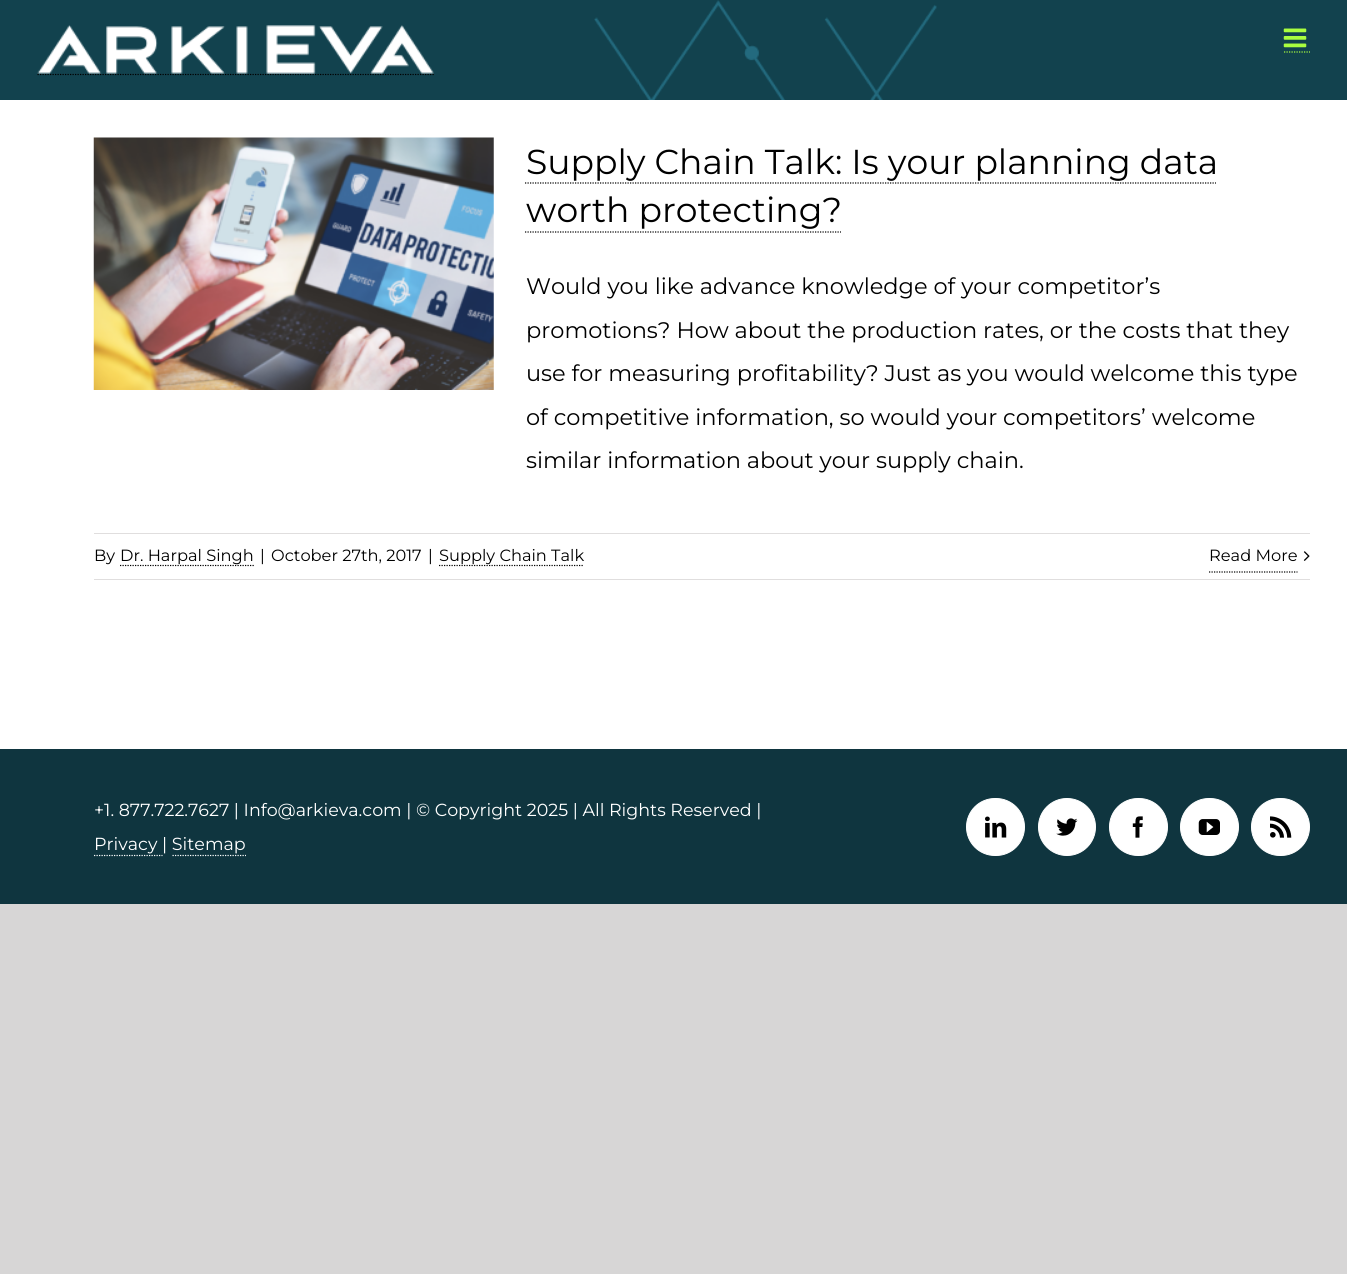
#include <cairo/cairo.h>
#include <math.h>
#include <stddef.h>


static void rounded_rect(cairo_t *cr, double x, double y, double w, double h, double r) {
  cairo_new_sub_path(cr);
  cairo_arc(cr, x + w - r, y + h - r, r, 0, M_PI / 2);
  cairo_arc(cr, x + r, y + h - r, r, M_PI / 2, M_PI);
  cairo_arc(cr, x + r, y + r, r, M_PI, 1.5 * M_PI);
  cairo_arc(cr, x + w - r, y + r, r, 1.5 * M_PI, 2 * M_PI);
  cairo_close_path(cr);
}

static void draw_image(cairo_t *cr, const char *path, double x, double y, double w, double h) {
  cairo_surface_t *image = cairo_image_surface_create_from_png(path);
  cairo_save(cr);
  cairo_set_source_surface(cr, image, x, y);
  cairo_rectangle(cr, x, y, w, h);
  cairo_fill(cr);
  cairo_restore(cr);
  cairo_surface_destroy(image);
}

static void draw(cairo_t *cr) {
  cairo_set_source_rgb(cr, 215 / 255.0, 214 / 255.0, 214 / 255.0);
  cairo_paint(cr);
  cairo_set_source_rgb(cr, 1, 1, 1);
  cairo_rectangle(cr, 0, 100, 1347, 649);
  cairo_fill(cr);
  cairo_set_source_rgb(cr, 18 / 255.0, 66 / 255.0, 78 / 255.0);
  cairo_rectangle(cr, 0, 0, 1347, 100);
  cairo_fill(cr);
  draw_image(cr, "images/1.png", 594, 0, 343, 100);
  cairo_new_path(cr);
  cairo_move_to(cr, 37.5, 74.5);
  cairo_line_to(cr, 434, 74.5);
  cairo_set_source_rgb(cr, 0, 0, 0);
  cairo_set_line_width(cr, 1.2);
  cairo_set_dash(cr, (double[]){1.25, 1.25}, 2, 0);
  cairo_stroke(cr);
  draw_image(cr, "images/2.png", 37, 25, 397, 49);
  cairo_new_path(cr);
  cairo_move_to(cr, 1284, 52);
  cairo_line_to(cr, 1310, 52);
  cairo_set_source_rgb(cr, 169 / 255.0, 254 / 255.0, 63 / 255.0);
  cairo_stroke(cr);
  draw_image(cr, "images/3.png", 1283, 28, 24, 20);
  draw_image(cr, "images/4.png", 93, 137, 401, 253);
  cairo_new_path(cr);
  cairo_move_to(cr, 525, 183);
  cairo_line_to(cr, 1216, 183);
  cairo_set_source_rgb(cr, 0, 0, 0);
  cairo_stroke(cr);
  cairo_new_path(cr);
  cairo_move_to(cr, 525, 232);
  cairo_line_to(cr, 841, 232);
  cairo_stroke(cr);
  cairo_set_source_rgb(cr, 224 / 255.0, 222 / 255.0, 222 / 255.0);
  cairo_rectangle(cr, 94, 533, 1216, 1);
  cairo_fill(cr);
  cairo_rectangle(cr, 94, 579, 1216, 1);
  cairo_fill(cr);
  cairo_new_path(cr);
  cairo_move_to(cr, 120, 565.5);
  cairo_line_to(cr, 254, 565.5);
  cairo_set_source_rgb(cr, 0, 0, 0);
  cairo_stroke(cr);
  cairo_new_path(cr);
  cairo_move_to(cr, 439, 565.5);
  cairo_line_to(cr, 584, 565.5);
  cairo_stroke(cr);
  cairo_new_path(cr);
  cairo_move_to(cr, 1209, 572);
  cairo_line_to(cr, 1297.5, 572);
  cairo_stroke(cr);
  draw_image(cr, "images/5.png", 1303, 551, 7, 10);
  cairo_set_source_rgb(cr, 15 / 255.0, 53 / 255.0, 63 / 255.0);
  cairo_rectangle(cr, 0, 749, 1347, 155);
  cairo_fill(cr);
  cairo_new_path(cr);
  cairo_move_to(cr, 94, 855.5);
  cairo_line_to(cr, 162.5, 855.5);
  cairo_set_source_rgb(cr, 1, 1, 1);
  cairo_stroke(cr);
  cairo_new_path(cr);
  cairo_move_to(cr, 172.5, 855.5);
  cairo_line_to(cr, 246, 855.5);
  cairo_stroke(cr);
  rounded_rect(cr, 966.5, 798.5, 58, 57, 28.5);
  cairo_fill_preserve(cr);
  cairo_set_line_width(cr, 1);
  cairo_set_dash(cr, NULL, 0, 0);
  cairo_stroke(cr);
  draw_image(cr, "images/6.png", 985, 816, 22, 22);
  cairo_arc(cr, 1067, 827, 28.5, 0, 2 * M_PI);
  cairo_fill_preserve(cr);
  cairo_stroke(cr);
  draw_image(cr, "images/7.png", 1056, 818, 22, 18);
  rounded_rect(cr, 1109.5, 798.5, 58, 57, 28.5);
  cairo_fill_preserve(cr);
  cairo_stroke(cr);
  draw_image(cr, "images/8.png", 1132, 816, 11, 22);
  rounded_rect(cr, 1180.5, 798.5, 58, 57, 28.5);
  cairo_fill_preserve(cr);
  cairo_stroke(cr);
  draw_image(cr, "images/9.png", 1198, 819, 22, 16);
  rounded_rect(cr, 1251.5, 798.5, 58, 57, 28.5);
  cairo_fill_preserve(cr);
  cairo_stroke(cr);
  draw_image(cr, "images/10.png", 1270, 816, 22, 22);
  cairo_select_font_face(cr, "Montserrat Thin", CAIRO_FONT_SLANT_NORMAL, CAIRO_FONT_WEIGHT_NORMAL);
  cairo_set_font_size(cr, 34.6);
  cairo_set_source_rgb(cr, 0, 0, 0);
  cairo_move_to(cr, 526, 174);
  cairo_show_text(cr, "Supply Chain Talk: Is your planning data");
  cairo_move_to(cr, 526, 222);
  cairo_show_text(cr, "worth protecting?");
  cairo_set_font_size(cr, 22.5);
  cairo_move_to(cr, 526, 294);
  cairo_show_text(cr, "Would you like advance knowledge of your competitor’s");
  cairo_move_to(cr, 526, 338);
  cairo_show_text(cr, "promotions? How about the production rates, or the costs that they");
  cairo_move_to(cr, 526, 381);
  cairo_show_text(cr, "use for measuring profitability? Just as you would welcome this type");
  cairo_move_to(cr, 526, 425);
  cairo_show_text(cr, "of competitive information, so would your competitors’ welcome");
  cairo_move_to(cr, 526, 468);
  cairo_show_text(cr, "similar information about your supply chain.");
  cairo_set_font_size(cr, 16.25);
  cairo_move_to(cr, 94, 561);
  cairo_show_text(cr, "By");
  cairo_move_to(cr, 120, 561);
  cairo_show_text(cr, "Dr. Harpal Singh");
  cairo_move_to(cr, 260, 561);
  cairo_show_text(cr, "|");
  cairo_move_to(cr, 271, 561);
  cairo_show_text(cr, "October 27th, 2017");
  cairo_move_to(cr, 428, 561);
  cairo_show_text(cr, "|");
  cairo_move_to(cr, 439, 561);
  cairo_show_text(cr, "Supply Chain Talk");
  cairo_move_to(cr, 1209, 561);
  cairo_show_text(cr, "Read More");
  cairo_set_font_size(cr, 17.5);
  cairo_set_source_rgb(cr, 1, 1, 1);
  cairo_move_to(cr, 94, 816);
  cairo_show_text(cr, "+1. 877.722.7627 | Info@arkieva.com | © Copyright 2025 | All Rights Reserved |");
  cairo_move_to(cr, 94, 850);
  cairo_show_text(cr, "Privacy | Sitemap");
}

int main(void) {
  cairo_surface_t *surface = cairo_image_surface_create(CAIRO_FORMAT_RGB24, 1347, 1274);
  cairo_t *cr = cairo_create(surface);
  cairo_font_options_t *options = cairo_font_options_create();
  cairo_font_options_set_hint_metrics(options, CAIRO_HINT_METRICS_OFF);
  cairo_font_options_set_hint_style(options, CAIRO_HINT_STYLE_NONE);
  cairo_set_font_options(cr, options);
  cairo_set_miter_limit(cr, 4);
  draw(cr);
  cairo_surface_write_to_png(surface, "out.png");
  cairo_font_options_destroy(options);
  cairo_destroy(cr);
  cairo_surface_destroy(surface);
  return 0;
}
